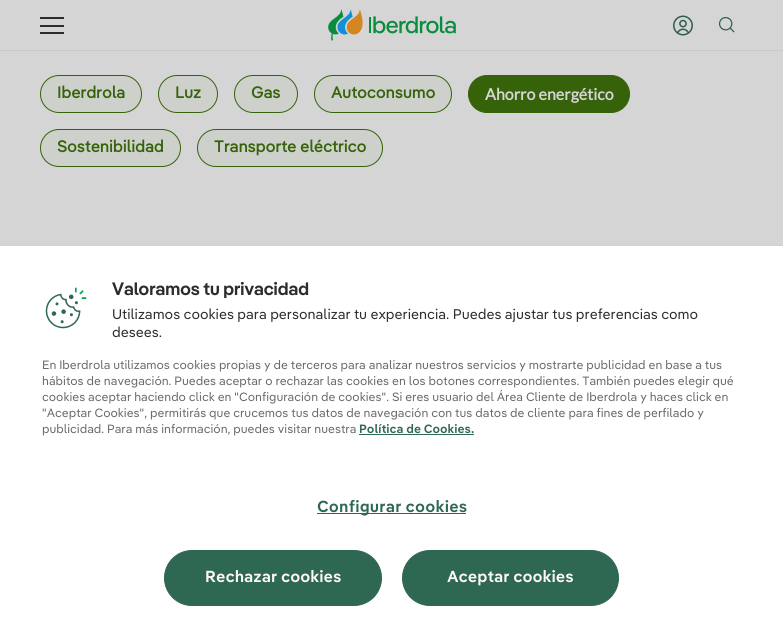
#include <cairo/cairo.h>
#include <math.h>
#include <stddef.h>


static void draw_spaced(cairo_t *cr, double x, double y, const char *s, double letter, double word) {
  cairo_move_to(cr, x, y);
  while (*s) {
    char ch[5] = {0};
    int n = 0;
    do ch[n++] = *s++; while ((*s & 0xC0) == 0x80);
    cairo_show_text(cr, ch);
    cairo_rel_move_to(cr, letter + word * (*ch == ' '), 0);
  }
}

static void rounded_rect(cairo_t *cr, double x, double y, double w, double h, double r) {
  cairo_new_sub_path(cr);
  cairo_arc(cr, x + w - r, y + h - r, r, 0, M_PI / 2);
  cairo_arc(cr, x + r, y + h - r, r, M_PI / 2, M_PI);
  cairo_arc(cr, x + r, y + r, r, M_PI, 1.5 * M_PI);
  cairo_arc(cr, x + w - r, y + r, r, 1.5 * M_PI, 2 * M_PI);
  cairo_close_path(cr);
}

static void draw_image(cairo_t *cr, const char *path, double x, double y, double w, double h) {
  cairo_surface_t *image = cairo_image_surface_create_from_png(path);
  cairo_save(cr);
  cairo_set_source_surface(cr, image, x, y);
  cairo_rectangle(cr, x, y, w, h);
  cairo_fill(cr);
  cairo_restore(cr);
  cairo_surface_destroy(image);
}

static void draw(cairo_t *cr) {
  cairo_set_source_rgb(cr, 213 / 255.0, 213 / 255.0, 213 / 255.0);
  cairo_paint(cr);
  cairo_set_source_rgb(cr, 199 / 255.0, 201 / 255.0, 202 / 255.0);
  cairo_rectangle(cr, 0, 50, 783, 1);
  cairo_fill(cr);
  draw_image(cr, "images/1.png", 40, 17, 24, 17);
  draw_image(cr, "images/2.png", 328, 9, 128, 32);
  draw_image(cr, "images/3.png", 673, 15, 20, 21);
  draw_image(cr, "images/4.png", 719, 17, 16, 16);
  cairo_set_source_rgb(cr, 206 / 255.0, 209 / 255.0, 203 / 255.0);
  rounded_rect(cr, 40.5, 75.5, 101, 37, 18.5);
  cairo_fill_preserve(cr);
  cairo_set_source_rgb(cr, 54 / 255.0, 98 / 255.0, 10 / 255.0);
  cairo_set_line_width(cr, 1);
  cairo_stroke(cr);
  cairo_set_source_rgb(cr, 206 / 255.0, 209 / 255.0, 203 / 255.0);
  rounded_rect(cr, 158.5, 75.5, 59, 37, 18.5);
  cairo_fill_preserve(cr);
  cairo_set_source_rgb(cr, 54 / 255.0, 98 / 255.0, 10 / 255.0);
  cairo_stroke(cr);
  cairo_set_source_rgb(cr, 206 / 255.0, 209 / 255.0, 203 / 255.0);
  rounded_rect(cr, 234.5, 75.5, 63, 37, 18.5);
  cairo_fill_preserve(cr);
  cairo_set_source_rgb(cr, 54 / 255.0, 98 / 255.0, 10 / 255.0);
  cairo_stroke(cr);
  cairo_set_source_rgb(cr, 206 / 255.0, 209 / 255.0, 203 / 255.0);
  rounded_rect(cr, 314.5, 75.5, 137, 37, 18.5);
  cairo_fill_preserve(cr);
  cairo_set_source_rgb(cr, 54 / 255.0, 98 / 255.0, 10 / 255.0);
  cairo_stroke(cr);
  rounded_rect(cr, 468.5, 75.5, 161, 37, 18.5);
  cairo_fill_preserve(cr);
  cairo_stroke(cr);
  cairo_set_source_rgb(cr, 206 / 255.0, 209 / 255.0, 203 / 255.0);
  rounded_rect(cr, 40.5, 129.5, 140, 37, 18.5);
  cairo_fill_preserve(cr);
  cairo_set_source_rgb(cr, 54 / 255.0, 98 / 255.0, 10 / 255.0);
  cairo_stroke(cr);
  cairo_set_source_rgb(cr, 206 / 255.0, 209 / 255.0, 203 / 255.0);
  rounded_rect(cr, 197.5, 129.5, 185, 37, 18.5);
  cairo_fill_preserve(cr);
  cairo_set_source_rgb(cr, 54 / 255.0, 98 / 255.0, 10 / 255.0);
  cairo_stroke(cr);
  cairo_set_source_rgb(cr, 1, 1, 1);
  cairo_rectangle(cr, 0, 246, 783, 392);
  cairo_fill(cr);
  cairo_set_source_rgb(cr, 216 / 255.0, 207 / 255.0, 199 / 255.0);
  cairo_rectangle(cr, 0, 245, 783, 1);
  cairo_fill(cr);
  cairo_set_source_rgb(cr, 47 / 255.0, 104 / 255.0, 82 / 255.0);
  cairo_rectangle(cr, 359, 434, 115, 1);
  cairo_fill(cr);
  draw_image(cr, "images/5.png", 45, 287, 42, 42);
  cairo_rectangle(cr, 317, 513, 149, 1);
  cairo_fill(cr);
  rounded_rect(cr, 164.5, 550.5, 217, 55, 27.5);
  cairo_fill_preserve(cr);
  cairo_stroke(cr);
  rounded_rect(cr, 402.5, 550.5, 216, 55, 27.5);
  cairo_fill_preserve(cr);
  cairo_stroke(cr);
  cairo_select_font_face(cr, "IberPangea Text", CAIRO_FONT_SLANT_NORMAL, CAIRO_FONT_WEIGHT_BOLD);
  cairo_set_font_size(cr, 16);
  cairo_set_source_rgb(cr, 54 / 255.0, 98 / 255.0, 10 / 255.0);
  cairo_move_to(cr, 57, 98);
  cairo_show_text(cr, "Iberdrola");
  cairo_move_to(cr, 175, 98);
  cairo_show_text(cr, "Luz");
  cairo_move_to(cr, 251, 98);
  cairo_show_text(cr, "Gas");
  cairo_move_to(cr, 331, 98);
  cairo_show_text(cr, "Autoconsumo");
  cairo_select_font_face(cr, "Lato", CAIRO_FONT_SLANT_NORMAL, CAIRO_FONT_WEIGHT_BOLD);
  cairo_set_source_rgb(cr, 213 / 255.0, 213 / 255.0, 213 / 255.0);
  cairo_move_to(cr, 485, 100);
  cairo_show_text(cr, "Ahorro energético");
  cairo_select_font_face(cr, "IberPangea Text", CAIRO_FONT_SLANT_NORMAL, CAIRO_FONT_WEIGHT_BOLD);
  cairo_set_source_rgb(cr, 54 / 255.0, 98 / 255.0, 10 / 255.0);
  cairo_move_to(cr, 57, 152);
  cairo_show_text(cr, "Sostenibilidad");
  cairo_move_to(cr, 214, 152);
  cairo_show_text(cr, "Transporte eléctrico");
  cairo_select_font_face(cr, "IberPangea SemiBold", CAIRO_FONT_SLANT_NORMAL, CAIRO_FONT_WEIGHT_NORMAL);
  cairo_set_font_size(cr, 18);
  cairo_set_source_rgb(cr, 44 / 255.0, 44 / 255.0, 44 / 255.0);
  cairo_move_to(cr, 112, 295);
  cairo_show_text(cr, "Valoramos tu privacidad");
  cairo_select_font_face(cr, "IberPangea Text", CAIRO_FONT_SLANT_NORMAL, CAIRO_FONT_WEIGHT_NORMAL);
  cairo_set_font_size(cr, 14);
  cairo_move_to(cr, 112, 319);
  cairo_show_text(cr, "Utilizamos cookies para personalizar tu experiencia. Puedes ajustar tus preferencias como");
  cairo_move_to(cr, 112, 337);
  cairo_show_text(cr, "desees.");
  cairo_set_font_size(cr, 12);
  cairo_set_source_rgb(cr, 105 / 255.0, 105 / 255.0, 105 / 255.0);
  cairo_move_to(cr, 42, 369);
  cairo_show_text(cr, "En Iberdrola utilizamos cookies propias y de terceros para analizar nuestros servicios y mostrarte publicidad en base a tus");
  cairo_move_to(cr, 42, 385);
  cairo_show_text(cr, "hábitos de navegación. Puedes aceptar o rechazar las cookies en los botones correspondientes. También puedes elegir qué");
  cairo_move_to(cr, 42, 401);
  cairo_show_text(cr, "cookies aceptar haciendo click en \"Configuración de cookies\". Si eres usuario del Área Cliente de Iberdrola y haces click en");
  cairo_move_to(cr, 42, 417);
  cairo_show_text(cr, "\"Aceptar Cookies\", permitirás que crucemos tus datos de navegación con tus datos de cliente para fines de perfilado y");
  cairo_move_to(cr, 42, 433);
  cairo_show_text(cr, "publicidad. Para más información, puedes visitar nuestra");
  cairo_select_font_face(cr, "IberPangea Text SemiBold", CAIRO_FONT_SLANT_NORMAL, CAIRO_FONT_WEIGHT_NORMAL);
  cairo_set_source_rgb(cr, 47 / 255.0, 104 / 255.0, 82 / 255.0);
  cairo_move_to(cr, 359, 433);
  cairo_show_text(cr, "Política de Cookies.");
  cairo_set_font_size(cr, 16);
  draw_spaced(cr, 317, 512, "Configurar cookies", 0.2, 0);
  cairo_set_source_rgb(cr, 1, 250 / 255.0, 246 / 255.0);
  cairo_move_to(cr, 205, 582);
  cairo_show_text(cr, "Rechazar cookies");
  cairo_move_to(cr, 447, 582);
  cairo_show_text(cr, "Aceptar cookies");
}

int main(void) {
  cairo_surface_t *surface = cairo_image_surface_create(CAIRO_FORMAT_RGB24, 783, 638);
  cairo_t *cr = cairo_create(surface);
  cairo_font_options_t *options = cairo_font_options_create();
  cairo_font_options_set_hint_metrics(options, CAIRO_HINT_METRICS_OFF);
  cairo_font_options_set_hint_style(options, CAIRO_HINT_STYLE_NONE);
  cairo_set_font_options(cr, options);
  cairo_set_miter_limit(cr, 4);
  draw(cr);
  cairo_surface_write_to_png(surface, "out.png");
  cairo_font_options_destroy(options);
  cairo_destroy(cr);
  cairo_surface_destroy(surface);
  return 0;
}
